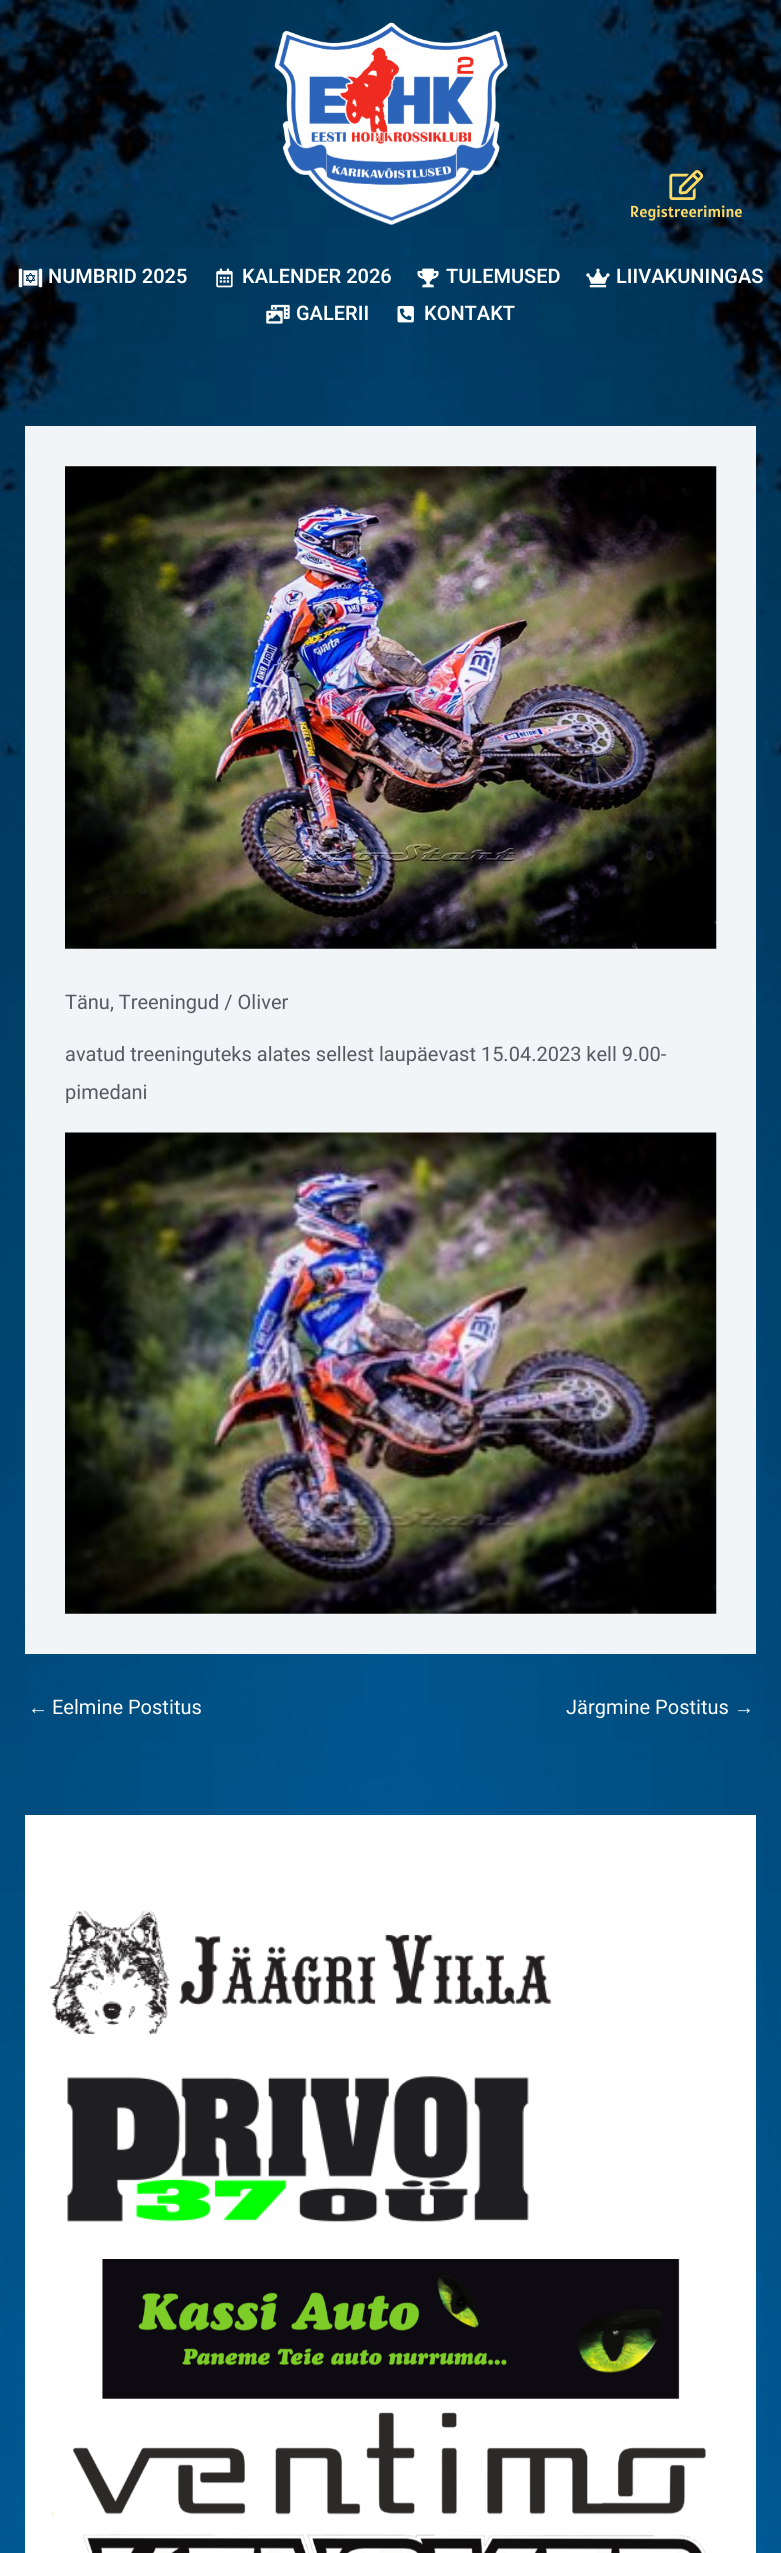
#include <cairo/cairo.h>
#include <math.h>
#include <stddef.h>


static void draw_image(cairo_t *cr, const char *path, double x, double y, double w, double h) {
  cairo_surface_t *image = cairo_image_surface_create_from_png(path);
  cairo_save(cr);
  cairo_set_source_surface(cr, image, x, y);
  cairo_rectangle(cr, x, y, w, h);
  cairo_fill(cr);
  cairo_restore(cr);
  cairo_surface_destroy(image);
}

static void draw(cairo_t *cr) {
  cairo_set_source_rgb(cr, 1, 1, 1);
  cairo_paint(cr);
  draw_image(cr, "images/1.png", 0, 0, 781, 2553);
  draw_image(cr, "images/2.png", 274, 22, 234, 203);
  draw_image(cr, "images/3.png", 669, 170, 35, 30);
  draw_image(cr, "images/4.png", 18, 268, 25, 20);
  draw_image(cr, "images/5.png", 216, 268, 17, 20);
  draw_image(cr, "images/6.png", 417, 268, 22, 20);
  draw_image(cr, "images/7.png", 586, 268, 24, 20);
  draw_image(cr, "images/8.png", 266, 304, 24, 20);
  draw_image(cr, "images/9.png", 397, 306, 17, 17);
  cairo_set_source_rgb(cr, 242 / 255.0, 245 / 255.0, 247 / 255.0);
  cairo_rectangle(cr, 25, 426, 731, 1228);
  cairo_fill(cr);
  draw_image(cr, "images/10.png", 65, 466, 652, 483);
  draw_image(cr, "images/11.png", 65, 1132, 652, 482);
  cairo_set_source_rgb(cr, 1, 1, 1);
  cairo_rectangle(cr, 25, 1815, 731, 738);
  cairo_fill(cr);
  draw_image(cr, "images/12.png", 50, 1910, 502, 124);
  draw_image(cr, "images/13.png", 67, 2076, 462, 146);
  draw_image(cr, "images/14.png", 102, 2259, 578, 140);
  draw_image(cr, "images/15.png", 51, 2412, 655, 141);
  cairo_select_font_face(cr, "Alatsi", CAIRO_FONT_SLANT_NORMAL, CAIRO_FONT_WEIGHT_NORMAL);
  cairo_set_font_size(cr, 16);
  cairo_set_source_rgb(cr, 1, 218 / 255.0, 102 / 255.0);
  cairo_move_to(cr, 630, 217);
  cairo_show_text(cr, "Registreerimine");
  cairo_select_font_face(cr, "Heebo SemiBold", CAIRO_FONT_SLANT_NORMAL, CAIRO_FONT_WEIGHT_NORMAL);
  cairo_set_font_size(cr, 20);
  cairo_set_source_rgb(cr, 1, 1, 1);
  cairo_move_to(cr, 48, 283);
  cairo_show_text(cr, "NUMBRID 2025");
  cairo_move_to(cr, 242, 283);
  cairo_show_text(cr, "KALENDER 2026");
  cairo_move_to(cr, 446, 283);
  cairo_show_text(cr, "TULEMUSED");
  cairo_move_to(cr, 616, 283);
  cairo_show_text(cr, "LIIVAKUNINGAS");
  cairo_move_to(cr, 296, 320);
  cairo_show_text(cr, "GALERII");
  cairo_move_to(cr, 424, 320);
  cairo_show_text(cr, "KONTAKT");
  cairo_select_font_face(cr, "Heebo", CAIRO_FONT_SLANT_NORMAL, CAIRO_FONT_WEIGHT_NORMAL);
  cairo_set_source_rgb(cr, 86 / 255.0, 90 / 255.0, 97 / 255.0);
  cairo_move_to(cr, 65, 1009);
  cairo_show_text(cr, "Tänu, Treeningud / Oliver");
  cairo_move_to(cr, 65, 1061);
  cairo_show_text(cr, "avatud treeninguteks alates sellest laupäevast 15.04.2023 kell 9.00-");
  cairo_move_to(cr, 65, 1099);
  cairo_show_text(cr, "pimedani");
  cairo_select_font_face(cr, "Liberation Sans", CAIRO_FONT_SLANT_NORMAL, CAIRO_FONT_WEIGHT_NORMAL);
  cairo_set_source_rgb(cr, 1, 1, 1);
  cairo_move_to(cr, 28, 1714);
  cairo_show_text(cr, "←");
  cairo_select_font_face(cr, "Heebo", CAIRO_FONT_SLANT_NORMAL, CAIRO_FONT_WEIGHT_NORMAL);
  cairo_move_to(cr, 52, 1714);
  cairo_show_text(cr, "Eelmine Postitus");
  cairo_move_to(cr, 566, 1714);
  cairo_show_text(cr, "Järgmine Postitus");
  cairo_select_font_face(cr, "Liberation Sans", CAIRO_FONT_SLANT_NORMAL, CAIRO_FONT_WEIGHT_NORMAL);
  cairo_move_to(cr, 734, 1714);
  cairo_show_text(cr, "→");
}

int main(void) {
  cairo_surface_t *surface = cairo_image_surface_create(CAIRO_FORMAT_RGB24, 781, 2553);
  cairo_t *cr = cairo_create(surface);
  cairo_font_options_t *options = cairo_font_options_create();
  cairo_font_options_set_hint_metrics(options, CAIRO_HINT_METRICS_OFF);
  cairo_font_options_set_hint_style(options, CAIRO_HINT_STYLE_NONE);
  cairo_set_font_options(cr, options);
  cairo_set_miter_limit(cr, 4);
  draw(cr);
  cairo_surface_write_to_png(surface, "out.png");
  cairo_font_options_destroy(options);
  cairo_destroy(cr);
  cairo_surface_destroy(surface);
  return 0;
}
